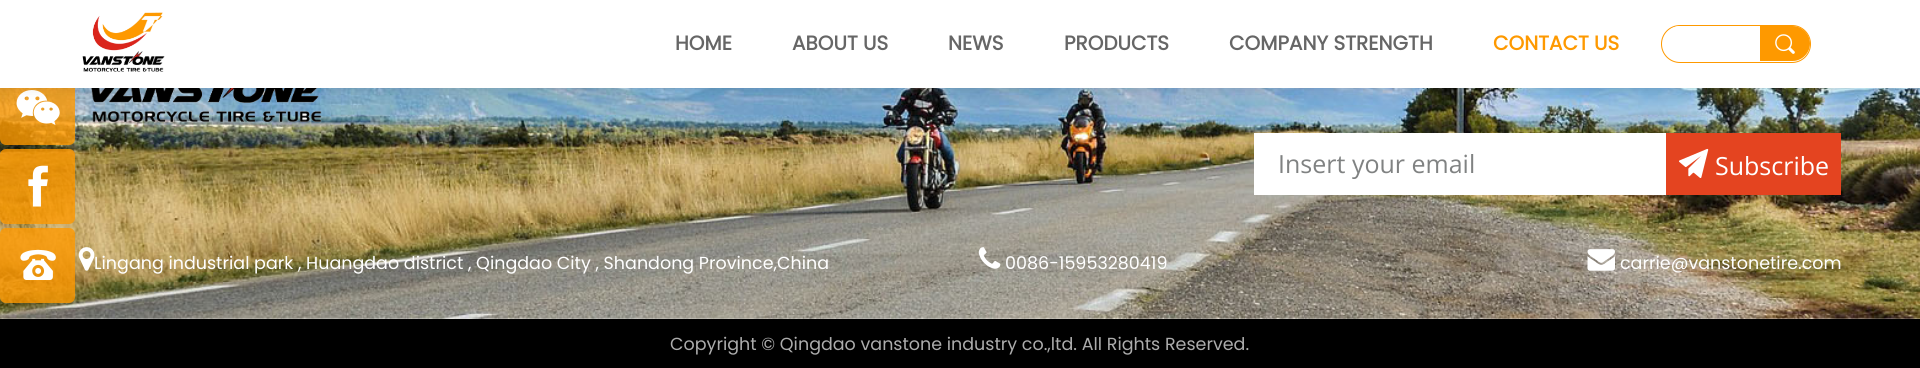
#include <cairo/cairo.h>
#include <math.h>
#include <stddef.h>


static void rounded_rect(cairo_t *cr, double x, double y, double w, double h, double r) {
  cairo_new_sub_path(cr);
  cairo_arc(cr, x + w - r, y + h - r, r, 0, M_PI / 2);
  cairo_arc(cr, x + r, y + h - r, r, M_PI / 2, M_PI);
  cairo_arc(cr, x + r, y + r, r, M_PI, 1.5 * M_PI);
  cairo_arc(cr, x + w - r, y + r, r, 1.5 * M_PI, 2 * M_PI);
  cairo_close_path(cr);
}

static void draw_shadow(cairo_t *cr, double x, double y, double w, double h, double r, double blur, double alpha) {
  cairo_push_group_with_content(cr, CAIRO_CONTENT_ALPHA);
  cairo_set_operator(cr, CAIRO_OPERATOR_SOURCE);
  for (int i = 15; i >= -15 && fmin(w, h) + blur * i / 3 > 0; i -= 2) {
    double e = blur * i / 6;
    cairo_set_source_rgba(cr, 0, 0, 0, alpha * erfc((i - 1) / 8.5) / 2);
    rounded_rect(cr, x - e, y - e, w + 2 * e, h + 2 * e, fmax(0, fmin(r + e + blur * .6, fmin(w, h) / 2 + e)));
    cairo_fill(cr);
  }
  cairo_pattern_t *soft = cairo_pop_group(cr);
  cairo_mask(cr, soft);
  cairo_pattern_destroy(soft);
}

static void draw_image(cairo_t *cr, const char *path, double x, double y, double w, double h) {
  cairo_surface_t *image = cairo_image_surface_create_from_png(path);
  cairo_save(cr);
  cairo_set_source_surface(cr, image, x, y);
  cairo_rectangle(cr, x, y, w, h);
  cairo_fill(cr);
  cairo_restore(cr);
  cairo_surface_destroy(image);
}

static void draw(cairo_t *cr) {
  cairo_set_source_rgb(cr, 1, 1, 1);
  cairo_paint(cr);
  draw_image(cr, "images/6.png", 0, 88, 1920, 231);
  cairo_set_source_rgba(cr, 254 / 255.0, 153 / 255.0, 0, 0.8);
  rounded_rect(cr, 0, 70, 75, 75, 6);
  cairo_fill(cr);
  draw_image(cr, "images/3.png", 16, 90, 44, 35);
  draw_image(cr, "images/7.png", 91, 88, 231, 35);
  cairo_set_source_rgb(cr, 0, 0, 0);
  draw_shadow(cr, 0, -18, 1920, 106, 0, 6, 0.1);
  cairo_set_source_rgb(cr, 1, 1, 1);
  cairo_rectangle(cr, 0, 0, 1920, 88);
  cairo_fill(cr);
  draw_image(cr, "images/1.png", 82, 12, 83, 60);
  rounded_rect(cr, 1661.5, 25.5, 149, 37, 18.5);
  cairo_set_source_rgb(cr, 254 / 255.0, 153 / 255.0, 0);
  cairo_set_line_width(cr, 1);
  cairo_stroke(cr);
  cairo_set_source_rgb(cr, 1, 1, 1);
  cairo_new_path(cr);
  cairo_move_to(cr, 1680.5, 26);
  cairo_line_to(cr, 1766, 26);
  cairo_line_to(cr, 1766, 61);
  cairo_line_to(cr, 1680.5, 61);
  cairo_curve_to(cr, 1671, 61, 1663, 53, 1663, 43.5);
  cairo_curve_to(cr, 1663, 34, 1671, 26, 1680.5, 26);
  cairo_close_path(cr);
  cairo_fill(cr);
  cairo_set_source_rgb(cr, 254 / 255.0, 153 / 255.0, 0);
  cairo_new_path(cr);
  cairo_move_to(cr, 1760, 26);
  cairo_line_to(cr, 1792.5, 26);
  cairo_curve_to(cr, 1802, 26, 1810, 34, 1810, 43.5);
  cairo_curve_to(cr, 1810, 53, 1802, 61, 1792.5, 61);
  cairo_line_to(cr, 1760, 61);
  cairo_close_path(cr);
  cairo_fill(cr);
  draw_image(cr, "images/2.png", 1775, 34, 20, 20);
  cairo_set_source_rgba(cr, 254 / 255.0, 153 / 255.0, 0, 0.8);
  rounded_rect(cr, 0, 149, 75, 75, 6);
  cairo_fill(cr);
  draw_image(cr, "images/4.png", 28, 165, 20, 42);
  rounded_rect(cr, 0, 228, 75, 75, 6);
  cairo_fill(cr);
  draw_image(cr, "images/5.png", 20, 249, 36, 31);
  cairo_set_source_rgb(cr, 1, 1, 1);
  cairo_rectangle(cr, 1254, 133, 412, 62);
  cairo_fill(cr);
  cairo_set_source_rgb(cr, 228 / 255.0, 68 / 255.0, 32 / 255.0);
  cairo_rectangle(cr, 1666, 133, 175, 62);
  cairo_fill(cr);
  draw_image(cr, "images/8.png", 1679, 148, 30, 30);
  draw_image(cr, "images/9.png", 78, 247, 17, 24);
  draw_image(cr, "images/10.png", 978, 247, 23, 22);
  draw_image(cr, "images/11.png", 1587, 249, 28, 22);
  cairo_set_source_rgb(cr, 0, 0, 0);
  cairo_rectangle(cr, 0, 319, 1920, 49);
  cairo_fill(cr);
  cairo_select_font_face(cr, "Poppins", CAIRO_FONT_SLANT_NORMAL, CAIRO_FONT_WEIGHT_BOLD);
  cairo_set_font_size(cr, 20);
  cairo_set_source_rgb(cr, 102 / 255.0, 102 / 255.0, 102 / 255.0);
  cairo_move_to(cr, 675, 50);
  cairo_show_text(cr, "HOME");
  cairo_move_to(cr, 792, 50);
  cairo_show_text(cr, "ABOUT US");
  cairo_move_to(cr, 948, 50);
  cairo_show_text(cr, "NEWS");
  cairo_move_to(cr, 1064, 50);
  cairo_show_text(cr, "PRODUCTS");
  cairo_move_to(cr, 1229, 50);
  cairo_show_text(cr, "COMPANY STRENGTH");
  cairo_set_source_rgb(cr, 254 / 255.0, 153 / 255.0, 0);
  cairo_move_to(cr, 1493, 50);
  cairo_show_text(cr, "CONTACT US");
  cairo_select_font_face(cr, "Open Sans", CAIRO_FONT_SLANT_NORMAL, CAIRO_FONT_WEIGHT_NORMAL);
  cairo_set_font_size(cr, 25);
  cairo_set_source_rgb(cr, 128 / 255.0, 130 / 255.0, 130 / 255.0);
  cairo_move_to(cr, 1278, 173);
  cairo_show_text(cr, "Insert your email");
  cairo_set_source_rgb(cr, 1, 1, 1);
  cairo_move_to(cr, 1715, 175);
  cairo_show_text(cr, "Subscribe");
  cairo_select_font_face(cr, "Poppins", CAIRO_FONT_SLANT_NORMAL, CAIRO_FONT_WEIGHT_NORMAL);
  cairo_set_font_size(cr, 17.5);
  cairo_move_to(cr, 94, 269);
  cairo_show_text(cr, "Lingang industrial park , Huangdao district , Qingdao City , Shandong Province,China");
  cairo_move_to(cr, 1005, 269);
  cairo_show_text(cr, "0086-15953280419");
  cairo_move_to(cr, 1620, 269);
  cairo_show_text(cr, "carrie@vanstonetire.com");
  cairo_set_source_rgb(cr, 172 / 255.0, 172 / 255.0, 172 / 255.0);
  cairo_move_to(cr, 670, 350);
  cairo_show_text(cr, "Copyright © Qingdao vanstone industry co.,ltd. All Rights Reserved.");
}

int main(void) {
  cairo_surface_t *surface = cairo_image_surface_create(CAIRO_FORMAT_RGB24, 1920, 368);
  cairo_t *cr = cairo_create(surface);
  cairo_font_options_t *options = cairo_font_options_create();
  cairo_font_options_set_hint_metrics(options, CAIRO_HINT_METRICS_OFF);
  cairo_font_options_set_hint_style(options, CAIRO_HINT_STYLE_NONE);
  cairo_set_font_options(cr, options);
  cairo_set_miter_limit(cr, 4);
  draw(cr);
  cairo_surface_write_to_png(surface, "out.png");
  cairo_font_options_destroy(options);
  cairo_destroy(cr);
  cairo_surface_destroy(surface);
  return 0;
}
